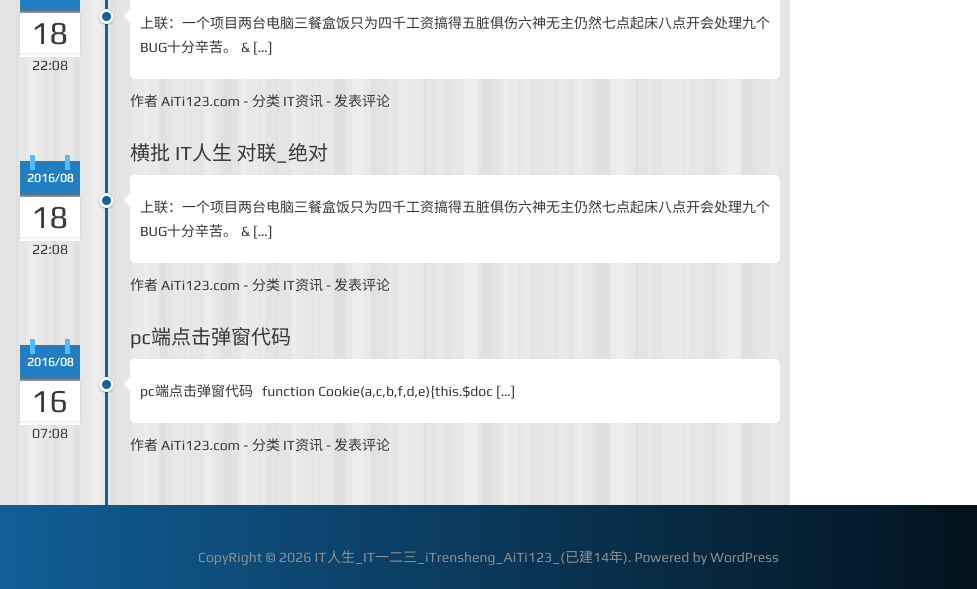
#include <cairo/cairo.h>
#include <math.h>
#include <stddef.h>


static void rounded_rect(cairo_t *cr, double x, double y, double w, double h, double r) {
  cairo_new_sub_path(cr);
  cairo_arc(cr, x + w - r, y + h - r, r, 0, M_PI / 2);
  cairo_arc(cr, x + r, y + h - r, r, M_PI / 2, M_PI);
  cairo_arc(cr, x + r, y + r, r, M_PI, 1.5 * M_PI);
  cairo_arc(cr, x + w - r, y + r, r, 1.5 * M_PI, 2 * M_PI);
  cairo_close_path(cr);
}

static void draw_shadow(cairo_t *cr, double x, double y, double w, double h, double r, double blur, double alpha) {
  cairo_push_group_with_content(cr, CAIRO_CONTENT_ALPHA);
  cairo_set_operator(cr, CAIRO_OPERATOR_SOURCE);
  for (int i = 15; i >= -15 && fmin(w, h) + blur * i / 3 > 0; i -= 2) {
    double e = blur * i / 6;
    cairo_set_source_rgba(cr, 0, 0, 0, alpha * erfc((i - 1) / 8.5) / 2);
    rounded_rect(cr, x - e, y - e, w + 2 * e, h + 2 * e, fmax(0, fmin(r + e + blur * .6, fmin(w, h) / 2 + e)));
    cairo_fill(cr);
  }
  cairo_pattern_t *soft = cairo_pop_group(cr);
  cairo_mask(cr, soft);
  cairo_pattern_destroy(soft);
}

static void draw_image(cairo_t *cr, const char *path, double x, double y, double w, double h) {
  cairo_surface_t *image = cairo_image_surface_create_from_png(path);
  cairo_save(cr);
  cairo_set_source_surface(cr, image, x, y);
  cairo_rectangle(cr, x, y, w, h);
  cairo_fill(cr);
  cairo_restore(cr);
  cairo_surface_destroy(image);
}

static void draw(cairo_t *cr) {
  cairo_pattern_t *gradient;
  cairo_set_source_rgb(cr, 1, 1, 1);
  cairo_paint(cr);
  gradient = cairo_pattern_create_linear(0, 200, 977, 200);
  cairo_pattern_add_color_stop_rgba(gradient, 0, 17 / 255.0, 94 / 255.0, 151 / 255.0, 1);
  cairo_pattern_add_color_stop_rgba(gradient, 0.5, 10 / 255.0, 56 / 255.0, 90 / 255.0, 1);
  cairo_pattern_add_color_stop_rgba(gradient, 1, 3 / 255.0, 18 / 255.0, 29 / 255.0, 1);
  cairo_set_source(cr, gradient);
  cairo_pattern_destroy(gradient);
  cairo_rectangle(cr, 0, 505, 977, 84);
  cairo_fill(cr);
  cairo_set_source_rgb(cr, 224 / 255.0, 224 / 255.0, 224 / 255.0);
  cairo_rectangle(cr, 0, 0, 769, 505);
  cairo_fill(cr);
  cairo_set_source_rgb(cr, 230 / 255.0, 230 / 255.0, 230 / 255.0);
  cairo_rectangle(cr, 26, 57, 27, 448);
  cairo_fill(cr);
  cairo_rectangle(cr, 80, 0, 25, 505);
  cairo_fill(cr);
  cairo_rectangle(cr, 133, 78, 26, 427);
  cairo_fill(cr);
  cairo_rectangle(cr, 186, 79, 26, 426);
  cairo_fill(cr);
  cairo_rectangle(cr, 239, 79, 26, 426);
  cairo_fill(cr);
  cairo_rectangle(cr, 292, 79, 26, 426);
  cairo_fill(cr);
  cairo_rectangle(cr, 345, 79, 26, 426);
  cairo_fill(cr);
  cairo_rectangle(cr, 398, 79, 26, 426);
  cairo_fill(cr);
  cairo_rectangle(cr, 451, 79, 26, 426);
  cairo_fill(cr);
  cairo_rectangle(cr, 504, 79, 26, 426);
  cairo_fill(cr);
  cairo_rectangle(cr, 557, 79, 26, 426);
  cairo_fill(cr);
  cairo_rectangle(cr, 610, 79, 26, 426);
  cairo_fill(cr);
  cairo_rectangle(cr, 663, 79, 26, 426);
  cairo_fill(cr);
  cairo_rectangle(cr, 716, 79, 26, 426);
  cairo_fill(cr);
  cairo_rectangle(cr, 769, 0, 21, 505);
  cairo_fill(cr);
  draw_image(cr, "images/1.png", 18, 0, 759, 505);
  draw_image(cr, "images/2.png", 0, 0, 759, 505);
  cairo_set_source_rgb(cr, 18 / 255.0, 98 / 255.0, 156 / 255.0);
  cairo_rectangle(cr, 105, 0, 3, 505);
  cairo_fill(cr);
  cairo_set_source_rgb(cr, 1, 1, 1);
  cairo_rectangle(cr, 20, 13, 60, 44);
  cairo_fill(cr);
  cairo_set_source_rgb(cr, 34 / 255.0, 126 / 255.0, 192 / 255.0);
  cairo_rectangle(cr, 20, 0, 60, 10);
  cairo_fill(cr);
  cairo_set_source_rgb(cr, 102 / 255.0, 102 / 255.0, 102 / 255.0);
  cairo_rectangle(cr, 20, 10, 60, 1);
  cairo_fill(cr);
  cairo_set_source_rgb(cr, 75 / 255.0, 128 / 255.0, 167 / 255.0);
  cairo_rectangle(cr, 20, 11, 60, 2);
  cairo_fill(cr);
  cairo_save(cr);
  cairo_set_fill_rule(cr, CAIRO_FILL_RULE_EVEN_ODD);
  cairo_new_path(cr);
  cairo_move_to(cr, 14, 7);
  cairo_line_to(cr, 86, 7);
  cairo_line_to(cr, 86, 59);
  cairo_line_to(cr, 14, 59);
  cairo_close_path(cr);
  cairo_move_to(cr, 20, 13);
  cairo_line_to(cr, 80, 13);
  cairo_line_to(cr, 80, 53);
  cairo_line_to(cr, 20, 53);
  cairo_close_path(cr);
  cairo_clip(cr);
  cairo_set_source_rgb(cr, 204 / 255.0, 204 / 255.0, 204 / 255.0);
  draw_shadow(cr, 20, 13, 60, 40, 0, 1.5, 1);
  cairo_restore(cr);
  cairo_set_source_rgb(cr, 1, 1, 1);
  rounded_rect(cr, 130, -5, 650, 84, 5);
  cairo_fill(cr);
  cairo_set_source_rgb(cr, 0, 0, 0);
  draw_shadow(cr, 99, 10, 15, 15, 7.5, 0.5, 0.2);
  cairo_set_source_rgb(cr, 18 / 255.0, 98 / 255.0, 156 / 255.0);
  cairo_arc(cr, 106.5, 16.5, 7.5, 0, 2 * M_PI);
  cairo_fill(cr);
  cairo_set_source_rgb(cr, 16 / 255.0, 88 / 255.0, 140 / 255.0);
  cairo_new_path(cr);
  cairo_move_to(cr, 106, 13);
  cairo_curve_to(cr, 109.5, 13, 111, 16.5, 110.5, 19);
  cairo_curve_to(cr, 113.5, 13.5, 105, 8.5, 102.5, 14.5);
  cairo_curve_to(cr, 102, 16, 102, 17, 102.5, 18);
  cairo_curve_to(cr, 102, 15.5, 103.5, 13, 106, 13);
  cairo_close_path(cr);
  cairo_fill(cr);
  cairo_arc(cr, 106.5, 16.5, 6, 0, 2 * M_PI);
  cairo_set_source_rgb(cr, 1, 1, 1);
  cairo_set_line_width(cr, 3);
  cairo_stroke(cr);
  cairo_new_path(cr);
  cairo_move_to(cr, 129.5, 9.5);
  cairo_line_to(cr, 136, 16);
  cairo_line_to(cr, 129.5, 22.5);
  cairo_line_to(cr, 123.5, 16);
  cairo_close_path(cr);
  cairo_fill(cr);
  cairo_set_source_rgb(cr, 229 / 255.0, 229 / 255.0, 229 / 255.0);
  cairo_new_path(cr);
  cairo_move_to(cr, 122.5, 15.5);
  cairo_line_to(cr, 129.5, 22.5);
  cairo_line_to(cr, 129, 23);
  cairo_line_to(cr, 122, 16);
  cairo_close_path(cr);
  cairo_fill(cr);
  cairo_new_path(cr);
  cairo_move_to(cr, 129, 9);
  cairo_line_to(cr, 129.5, 9.5);
  cairo_line_to(cr, 122.5, 16.5);
  cairo_line_to(cr, 122, 16);
  cairo_close_path(cr);
  cairo_fill(cr);
  cairo_set_source_rgb(cr, 1, 1, 1);
  cairo_rectangle(cr, 20, 197, 60, 44);
  cairo_fill(cr);
  cairo_set_source_rgb(cr, 34 / 255.0, 126 / 255.0, 192 / 255.0);
  cairo_rectangle(cr, 20, 161, 60, 33);
  cairo_fill(cr);
  cairo_set_source_rgb(cr, 86 / 255.0, 187 / 255.0, 1);
  cairo_rectangle(cr, 65, 155, 5, 15);
  cairo_fill(cr);
  cairo_rectangle(cr, 30, 155, 5, 15);
  cairo_fill(cr);
  cairo_set_source_rgb(cr, 102 / 255.0, 102 / 255.0, 102 / 255.0);
  cairo_rectangle(cr, 20, 194, 60, 1);
  cairo_fill(cr);
  cairo_set_source_rgb(cr, 75 / 255.0, 128 / 255.0, 167 / 255.0);
  cairo_rectangle(cr, 20, 195, 60, 2);
  cairo_fill(cr);
  cairo_save(cr);
  cairo_set_fill_rule(cr, CAIRO_FILL_RULE_EVEN_ODD);
  cairo_new_path(cr);
  cairo_move_to(cr, 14, 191);
  cairo_line_to(cr, 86, 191);
  cairo_line_to(cr, 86, 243);
  cairo_line_to(cr, 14, 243);
  cairo_close_path(cr);
  cairo_move_to(cr, 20, 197);
  cairo_line_to(cr, 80, 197);
  cairo_line_to(cr, 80, 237);
  cairo_line_to(cr, 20, 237);
  cairo_close_path(cr);
  cairo_clip(cr);
  cairo_set_source_rgb(cr, 204 / 255.0, 204 / 255.0, 204 / 255.0);
  draw_shadow(cr, 20, 197, 60, 40, 0, 1.5, 1);
  cairo_restore(cr);
  cairo_set_source_rgb(cr, 1, 1, 1);
  rounded_rect(cr, 130, 175, 650, 88, 5);
  cairo_fill(cr);
  cairo_set_source_rgb(cr, 0, 0, 0);
  draw_shadow(cr, 99, 194, 15, 15, 7.5, 0.5, 0.2);
  cairo_set_source_rgb(cr, 18 / 255.0, 98 / 255.0, 156 / 255.0);
  cairo_arc(cr, 106.5, 200.5, 7.5, 0, 2 * M_PI);
  cairo_fill(cr);
  cairo_set_source_rgb(cr, 16 / 255.0, 88 / 255.0, 140 / 255.0);
  cairo_new_path(cr);
  cairo_move_to(cr, 106, 197);
  cairo_curve_to(cr, 109.5, 197, 111, 200.5, 110.5, 203);
  cairo_curve_to(cr, 113.5, 197.5, 105, 192.5, 102.5, 198.5);
  cairo_curve_to(cr, 102, 200, 102, 201, 102.5, 202);
  cairo_curve_to(cr, 102, 199.5, 103.5, 197, 106, 197);
  cairo_close_path(cr);
  cairo_fill(cr);
  cairo_arc(cr, 106.5, 200.5, 6, 0, 2 * M_PI);
  cairo_set_source_rgb(cr, 1, 1, 1);
  cairo_stroke(cr);
  cairo_new_path(cr);
  cairo_move_to(cr, 129.5, 193.5);
  cairo_line_to(cr, 136, 200);
  cairo_line_to(cr, 129.5, 206.5);
  cairo_line_to(cr, 123.5, 200);
  cairo_close_path(cr);
  cairo_fill(cr);
  cairo_set_source_rgb(cr, 229 / 255.0, 229 / 255.0, 229 / 255.0);
  cairo_new_path(cr);
  cairo_move_to(cr, 122.5, 199.5);
  cairo_line_to(cr, 129.5, 206.5);
  cairo_line_to(cr, 129, 207);
  cairo_line_to(cr, 122, 200);
  cairo_close_path(cr);
  cairo_fill(cr);
  cairo_new_path(cr);
  cairo_move_to(cr, 129, 193);
  cairo_line_to(cr, 129.5, 193.5);
  cairo_line_to(cr, 122.5, 200.5);
  cairo_line_to(cr, 122, 200);
  cairo_close_path(cr);
  cairo_fill(cr);
  cairo_set_source_rgb(cr, 1, 1, 1);
  cairo_rectangle(cr, 20, 381, 60, 44);
  cairo_fill(cr);
  cairo_set_source_rgb(cr, 34 / 255.0, 126 / 255.0, 192 / 255.0);
  cairo_rectangle(cr, 20, 345, 60, 33);
  cairo_fill(cr);
  cairo_set_source_rgb(cr, 86 / 255.0, 187 / 255.0, 1);
  cairo_rectangle(cr, 65, 339, 5, 15);
  cairo_fill(cr);
  cairo_rectangle(cr, 30, 339, 5, 15);
  cairo_fill(cr);
  cairo_set_source_rgb(cr, 102 / 255.0, 102 / 255.0, 102 / 255.0);
  cairo_rectangle(cr, 20, 378, 60, 1);
  cairo_fill(cr);
  cairo_set_source_rgb(cr, 75 / 255.0, 128 / 255.0, 167 / 255.0);
  cairo_rectangle(cr, 20, 379, 60, 2);
  cairo_fill(cr);
  cairo_save(cr);
  cairo_set_fill_rule(cr, CAIRO_FILL_RULE_EVEN_ODD);
  cairo_new_path(cr);
  cairo_move_to(cr, 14, 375);
  cairo_line_to(cr, 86, 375);
  cairo_line_to(cr, 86, 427);
  cairo_line_to(cr, 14, 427);
  cairo_close_path(cr);
  cairo_move_to(cr, 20, 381);
  cairo_line_to(cr, 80, 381);
  cairo_line_to(cr, 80, 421);
  cairo_line_to(cr, 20, 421);
  cairo_close_path(cr);
  cairo_clip(cr);
  cairo_set_source_rgb(cr, 204 / 255.0, 204 / 255.0, 204 / 255.0);
  draw_shadow(cr, 20, 381, 60, 40, 0, 1.5, 1);
  cairo_restore(cr);
  cairo_set_source_rgb(cr, 1, 1, 1);
  rounded_rect(cr, 130, 359, 650, 64, 5);
  cairo_fill(cr);
  cairo_set_source_rgb(cr, 0, 0, 0);
  draw_shadow(cr, 99, 378, 15, 15, 7.5, 0.5, 0.2);
  cairo_set_source_rgb(cr, 18 / 255.0, 98 / 255.0, 156 / 255.0);
  cairo_arc(cr, 106.5, 384.5, 7.5, 0, 2 * M_PI);
  cairo_fill(cr);
  cairo_set_source_rgb(cr, 16 / 255.0, 88 / 255.0, 140 / 255.0);
  cairo_new_path(cr);
  cairo_move_to(cr, 106, 381);
  cairo_curve_to(cr, 109.5, 381, 111, 384.5, 110.5, 387);
  cairo_curve_to(cr, 113.5, 381.5, 105, 376.5, 102.5, 382.5);
  cairo_curve_to(cr, 102, 384, 102, 385, 102.5, 386);
  cairo_curve_to(cr, 102, 383.5, 103.5, 381, 106, 381);
  cairo_close_path(cr);
  cairo_fill(cr);
  cairo_arc(cr, 106.5, 384.5, 6, 0, 2 * M_PI);
  cairo_set_source_rgb(cr, 1, 1, 1);
  cairo_stroke(cr);
  cairo_new_path(cr);
  cairo_move_to(cr, 129.5, 377.5);
  cairo_line_to(cr, 136, 384);
  cairo_line_to(cr, 129.5, 390.5);
  cairo_line_to(cr, 123.5, 384);
  cairo_close_path(cr);
  cairo_fill(cr);
  cairo_set_source_rgb(cr, 229 / 255.0, 229 / 255.0, 229 / 255.0);
  cairo_new_path(cr);
  cairo_move_to(cr, 122.5, 383.5);
  cairo_line_to(cr, 129.5, 390.5);
  cairo_line_to(cr, 129, 391);
  cairo_line_to(cr, 122, 384);
  cairo_close_path(cr);
  cairo_fill(cr);
  cairo_new_path(cr);
  cairo_move_to(cr, 129, 377);
  cairo_line_to(cr, 129.5, 377.5);
  cairo_line_to(cr, 122.5, 384.5);
  cairo_line_to(cr, 122, 384);
  cairo_close_path(cr);
  cairo_fill(cr);
  cairo_select_font_face(cr, "Play", CAIRO_FONT_SLANT_NORMAL, CAIRO_FONT_WEIGHT_NORMAL);
  cairo_set_font_size(cr, 32);
  cairo_set_source_rgb(cr, 56 / 255.0, 56 / 255.0, 56 / 255.0);
  cairo_move_to(cr, 31, 44);
  cairo_show_text(cr, "18");
  cairo_set_font_size(cr, 14);
  cairo_move_to(cr, 32, 70);
  cairo_show_text(cr, "22:08");
  cairo_select_font_face(cr, "Noto Sans CJK SC", CAIRO_FONT_SLANT_NORMAL, CAIRO_FONT_WEIGHT_NORMAL);
  cairo_move_to(cr, 140, 28);
  cairo_show_text(cr, "上联：一个项目两台电脑三餐盒饭只为四千工资搞得五脏俱伤六神无主仍然七点起床八点开会处理九个");
  cairo_select_font_face(cr, "Play", CAIRO_FONT_SLANT_NORMAL, CAIRO_FONT_WEIGHT_NORMAL);
  cairo_move_to(cr, 140, 52);
  cairo_show_text(cr, "BUG");
  cairo_select_font_face(cr, "Noto Sans CJK SC", CAIRO_FONT_SLANT_NORMAL, CAIRO_FONT_WEIGHT_NORMAL);
  cairo_move_to(cr, 167, 52);
  cairo_show_text(cr, "十分辛苦。");
  cairo_select_font_face(cr, "Play", CAIRO_FONT_SLANT_NORMAL, CAIRO_FONT_WEIGHT_NORMAL);
  cairo_move_to(cr, 241, 52);
  cairo_show_text(cr, "& […]");
  cairo_select_font_face(cr, "Noto Sans CJK SC", CAIRO_FONT_SLANT_NORMAL, CAIRO_FONT_WEIGHT_NORMAL);
  cairo_move_to(cr, 130, 106);
  cairo_show_text(cr, "作者");
  cairo_select_font_face(cr, "Play", CAIRO_FONT_SLANT_NORMAL, CAIRO_FONT_WEIGHT_NORMAL);
  cairo_move_to(cr, 161, 106);
  cairo_show_text(cr, "AiTi123.com -");
  cairo_select_font_face(cr, "Noto Sans CJK SC", CAIRO_FONT_SLANT_NORMAL, CAIRO_FONT_WEIGHT_NORMAL);
  cairo_move_to(cr, 252, 106);
  cairo_show_text(cr, "分类");
  cairo_select_font_face(cr, "Play", CAIRO_FONT_SLANT_NORMAL, CAIRO_FONT_WEIGHT_NORMAL);
  cairo_move_to(cr, 283, 106);
  cairo_show_text(cr, "IT");
  cairo_select_font_face(cr, "Noto Sans CJK SC", CAIRO_FONT_SLANT_NORMAL, CAIRO_FONT_WEIGHT_NORMAL);
  cairo_move_to(cr, 295, 106);
  cairo_show_text(cr, "资讯");
  cairo_select_font_face(cr, "Play", CAIRO_FONT_SLANT_NORMAL, CAIRO_FONT_WEIGHT_NORMAL);
  cairo_move_to(cr, 326, 106);
  cairo_show_text(cr, "-");
  cairo_select_font_face(cr, "Noto Sans CJK SC", CAIRO_FONT_SLANT_NORMAL, CAIRO_FONT_WEIGHT_NORMAL);
  cairo_move_to(cr, 334, 106);
  cairo_show_text(cr, "发表评论");
  cairo_set_font_size(cr, 20);
  cairo_move_to(cr, 130, 160);
  cairo_show_text(cr, "横批");
  cairo_select_font_face(cr, "Play", CAIRO_FONT_SLANT_NORMAL, CAIRO_FONT_WEIGHT_NORMAL);
  cairo_move_to(cr, 175, 160);
  cairo_show_text(cr, "IT");
  cairo_select_font_face(cr, "Noto Sans CJK SC", CAIRO_FONT_SLANT_NORMAL, CAIRO_FONT_WEIGHT_NORMAL);
  cairo_move_to(cr, 192, 160);
  cairo_show_text(cr, "人生 对联");
  cairo_move_to(cr, 288, 160);
  cairo_show_text(cr, "绝对");
  cairo_select_font_face(cr, "Play", CAIRO_FONT_SLANT_NORMAL, CAIRO_FONT_WEIGHT_NORMAL);
  cairo_move_to(cr, 276, 160);
  cairo_show_text(cr, "_");
  cairo_select_font_face(cr, "Play", CAIRO_FONT_SLANT_NORMAL, CAIRO_FONT_WEIGHT_BOLD);
  cairo_set_font_size(cr, 12);
  cairo_set_source_rgb(cr, 1, 1, 1);
  cairo_move_to(cr, 27, 182);
  cairo_show_text(cr, "2016/08");
  cairo_select_font_face(cr, "Play", CAIRO_FONT_SLANT_NORMAL, CAIRO_FONT_WEIGHT_NORMAL);
  cairo_set_font_size(cr, 32);
  cairo_set_source_rgb(cr, 56 / 255.0, 56 / 255.0, 56 / 255.0);
  cairo_move_to(cr, 31, 228);
  cairo_show_text(cr, "18");
  cairo_set_font_size(cr, 14);
  cairo_move_to(cr, 32, 254);
  cairo_show_text(cr, "22:08");
  cairo_select_font_face(cr, "Noto Sans CJK SC", CAIRO_FONT_SLANT_NORMAL, CAIRO_FONT_WEIGHT_NORMAL);
  cairo_move_to(cr, 140, 212);
  cairo_show_text(cr, "上联：一个项目两台电脑三餐盒饭只为四千工资搞得五脏俱伤六神无主仍然七点起床八点开会处理九个");
  cairo_select_font_face(cr, "Play", CAIRO_FONT_SLANT_NORMAL, CAIRO_FONT_WEIGHT_NORMAL);
  cairo_move_to(cr, 140, 236);
  cairo_show_text(cr, "BUG");
  cairo_select_font_face(cr, "Noto Sans CJK SC", CAIRO_FONT_SLANT_NORMAL, CAIRO_FONT_WEIGHT_NORMAL);
  cairo_move_to(cr, 167, 236);
  cairo_show_text(cr, "十分辛苦。");
  cairo_select_font_face(cr, "Play", CAIRO_FONT_SLANT_NORMAL, CAIRO_FONT_WEIGHT_NORMAL);
  cairo_move_to(cr, 241, 236);
  cairo_show_text(cr, "& […]");
  cairo_select_font_face(cr, "Noto Sans CJK SC", CAIRO_FONT_SLANT_NORMAL, CAIRO_FONT_WEIGHT_NORMAL);
  cairo_move_to(cr, 130, 290);
  cairo_show_text(cr, "作者");
  cairo_select_font_face(cr, "Play", CAIRO_FONT_SLANT_NORMAL, CAIRO_FONT_WEIGHT_NORMAL);
  cairo_move_to(cr, 161, 290);
  cairo_show_text(cr, "AiTi123.com -");
  cairo_select_font_face(cr, "Noto Sans CJK SC", CAIRO_FONT_SLANT_NORMAL, CAIRO_FONT_WEIGHT_NORMAL);
  cairo_move_to(cr, 252, 290);
  cairo_show_text(cr, "分类");
  cairo_select_font_face(cr, "Play", CAIRO_FONT_SLANT_NORMAL, CAIRO_FONT_WEIGHT_NORMAL);
  cairo_move_to(cr, 283, 290);
  cairo_show_text(cr, "IT");
  cairo_select_font_face(cr, "Noto Sans CJK SC", CAIRO_FONT_SLANT_NORMAL, CAIRO_FONT_WEIGHT_NORMAL);
  cairo_move_to(cr, 295, 290);
  cairo_show_text(cr, "资讯");
  cairo_select_font_face(cr, "Play", CAIRO_FONT_SLANT_NORMAL, CAIRO_FONT_WEIGHT_NORMAL);
  cairo_move_to(cr, 326, 290);
  cairo_show_text(cr, "-");
  cairo_select_font_face(cr, "Noto Sans CJK SC", CAIRO_FONT_SLANT_NORMAL, CAIRO_FONT_WEIGHT_NORMAL);
  cairo_move_to(cr, 334, 290);
  cairo_show_text(cr, "发表评论");
  cairo_select_font_face(cr, "Play", CAIRO_FONT_SLANT_NORMAL, CAIRO_FONT_WEIGHT_NORMAL);
  cairo_set_font_size(cr, 20);
  cairo_move_to(cr, 130, 344);
  cairo_show_text(cr, "pc");
  cairo_select_font_face(cr, "Noto Sans CJK SC", CAIRO_FONT_SLANT_NORMAL, CAIRO_FONT_WEIGHT_NORMAL);
  cairo_move_to(cr, 151, 344);
  cairo_show_text(cr, "端点击弹窗代码");
  cairo_select_font_face(cr, "Play", CAIRO_FONT_SLANT_NORMAL, CAIRO_FONT_WEIGHT_BOLD);
  cairo_set_font_size(cr, 12);
  cairo_set_source_rgb(cr, 1, 1, 1);
  cairo_move_to(cr, 27, 366);
  cairo_show_text(cr, "2016/08");
  cairo_select_font_face(cr, "Play", CAIRO_FONT_SLANT_NORMAL, CAIRO_FONT_WEIGHT_NORMAL);
  cairo_set_font_size(cr, 32);
  cairo_set_source_rgb(cr, 56 / 255.0, 56 / 255.0, 56 / 255.0);
  cairo_move_to(cr, 31, 412);
  cairo_show_text(cr, "16");
  cairo_set_font_size(cr, 14);
  cairo_move_to(cr, 32, 438);
  cairo_show_text(cr, "07:08");
  cairo_move_to(cr, 140, 396);
  cairo_show_text(cr, "pc");
  cairo_select_font_face(cr, "Noto Sans CJK SC", CAIRO_FONT_SLANT_NORMAL, CAIRO_FONT_WEIGHT_NORMAL);
  cairo_move_to(cr, 155, 396);
  cairo_show_text(cr, "端点击弹窗代码");
  cairo_select_font_face(cr, "Play", CAIRO_FONT_SLANT_NORMAL, CAIRO_FONT_WEIGHT_NORMAL);
  cairo_move_to(cr, 262, 396);
  cairo_show_text(cr, "function Cookie(a,c,b,f,d,e){this.$doc […]");
  cairo_select_font_face(cr, "Noto Sans CJK SC", CAIRO_FONT_SLANT_NORMAL, CAIRO_FONT_WEIGHT_NORMAL);
  cairo_move_to(cr, 130, 450);
  cairo_show_text(cr, "作者");
  cairo_select_font_face(cr, "Play", CAIRO_FONT_SLANT_NORMAL, CAIRO_FONT_WEIGHT_NORMAL);
  cairo_move_to(cr, 161, 450);
  cairo_show_text(cr, "AiTi123.com -");
  cairo_select_font_face(cr, "Noto Sans CJK SC", CAIRO_FONT_SLANT_NORMAL, CAIRO_FONT_WEIGHT_NORMAL);
  cairo_move_to(cr, 252, 450);
  cairo_show_text(cr, "分类");
  cairo_select_font_face(cr, "Play", CAIRO_FONT_SLANT_NORMAL, CAIRO_FONT_WEIGHT_NORMAL);
  cairo_move_to(cr, 283, 450);
  cairo_show_text(cr, "IT");
  cairo_select_font_face(cr, "Noto Sans CJK SC", CAIRO_FONT_SLANT_NORMAL, CAIRO_FONT_WEIGHT_NORMAL);
  cairo_move_to(cr, 295, 450);
  cairo_show_text(cr, "资讯");
  cairo_select_font_face(cr, "Play", CAIRO_FONT_SLANT_NORMAL, CAIRO_FONT_WEIGHT_NORMAL);
  cairo_move_to(cr, 326, 450);
  cairo_show_text(cr, "-");
  cairo_select_font_face(cr, "Noto Sans CJK SC", CAIRO_FONT_SLANT_NORMAL, CAIRO_FONT_WEIGHT_NORMAL);
  cairo_move_to(cr, 334, 450);
  cairo_show_text(cr, "发表评论");
  cairo_select_font_face(cr, "Play", CAIRO_FONT_SLANT_NORMAL, CAIRO_FONT_WEIGHT_NORMAL);
  cairo_set_source_rgb(cr, 142 / 255.0, 142 / 255.0, 142 / 255.0);
  cairo_move_to(cr, 198, 562);
  cairo_show_text(cr, "CopyRight © 2026 IT");
  cairo_select_font_face(cr, "Noto Sans CJK SC", CAIRO_FONT_SLANT_NORMAL, CAIRO_FONT_WEIGHT_NORMAL);
  cairo_move_to(cr, 327, 562);
  cairo_show_text(cr, "人生");
  cairo_select_font_face(cr, "Play", CAIRO_FONT_SLANT_NORMAL, CAIRO_FONT_WEIGHT_NORMAL);
  cairo_move_to(cr, 355, 562);
  cairo_show_text(cr, "_IT");
  cairo_select_font_face(cr, "Noto Sans CJK SC", CAIRO_FONT_SLANT_NORMAL, CAIRO_FONT_WEIGHT_NORMAL);
  cairo_move_to(cr, 375, 562);
  cairo_show_text(cr, "一二三");
  cairo_select_font_face(cr, "Play", CAIRO_FONT_SLANT_NORMAL, CAIRO_FONT_WEIGHT_NORMAL);
  cairo_move_to(cr, 417, 562);
  cairo_show_text(cr, "_iTrensheng_AiTi123_(");
  cairo_select_font_face(cr, "Noto Sans CJK SC", CAIRO_FONT_SLANT_NORMAL, CAIRO_FONT_WEIGHT_NORMAL);
  cairo_move_to(cr, 565, 562);
  cairo_show_text(cr, "已建");
  cairo_select_font_face(cr, "Play", CAIRO_FONT_SLANT_NORMAL, CAIRO_FONT_WEIGHT_NORMAL);
  cairo_move_to(cr, 593, 562);
  cairo_show_text(cr, "14");
  cairo_select_font_face(cr, "Noto Sans CJK SC", CAIRO_FONT_SLANT_NORMAL, CAIRO_FONT_WEIGHT_NORMAL);
  cairo_move_to(cr, 609, 562);
  cairo_show_text(cr, "年");
  cairo_select_font_face(cr, "Play", CAIRO_FONT_SLANT_NORMAL, CAIRO_FONT_WEIGHT_NORMAL);
  cairo_move_to(cr, 623, 562);
  cairo_show_text(cr, "). Powered by WordPress");
}

int main(void) {
  cairo_surface_t *surface = cairo_image_surface_create(CAIRO_FORMAT_RGB24, 977, 589);
  cairo_t *cr = cairo_create(surface);
  cairo_font_options_t *options = cairo_font_options_create();
  cairo_font_options_set_hint_metrics(options, CAIRO_HINT_METRICS_OFF);
  cairo_font_options_set_hint_style(options, CAIRO_HINT_STYLE_NONE);
  cairo_set_font_options(cr, options);
  cairo_set_miter_limit(cr, 4);
  draw(cr);
  cairo_surface_write_to_png(surface, "out.png");
  cairo_font_options_destroy(options);
  cairo_destroy(cr);
  cairo_surface_destroy(surface);
  return 0;
}
